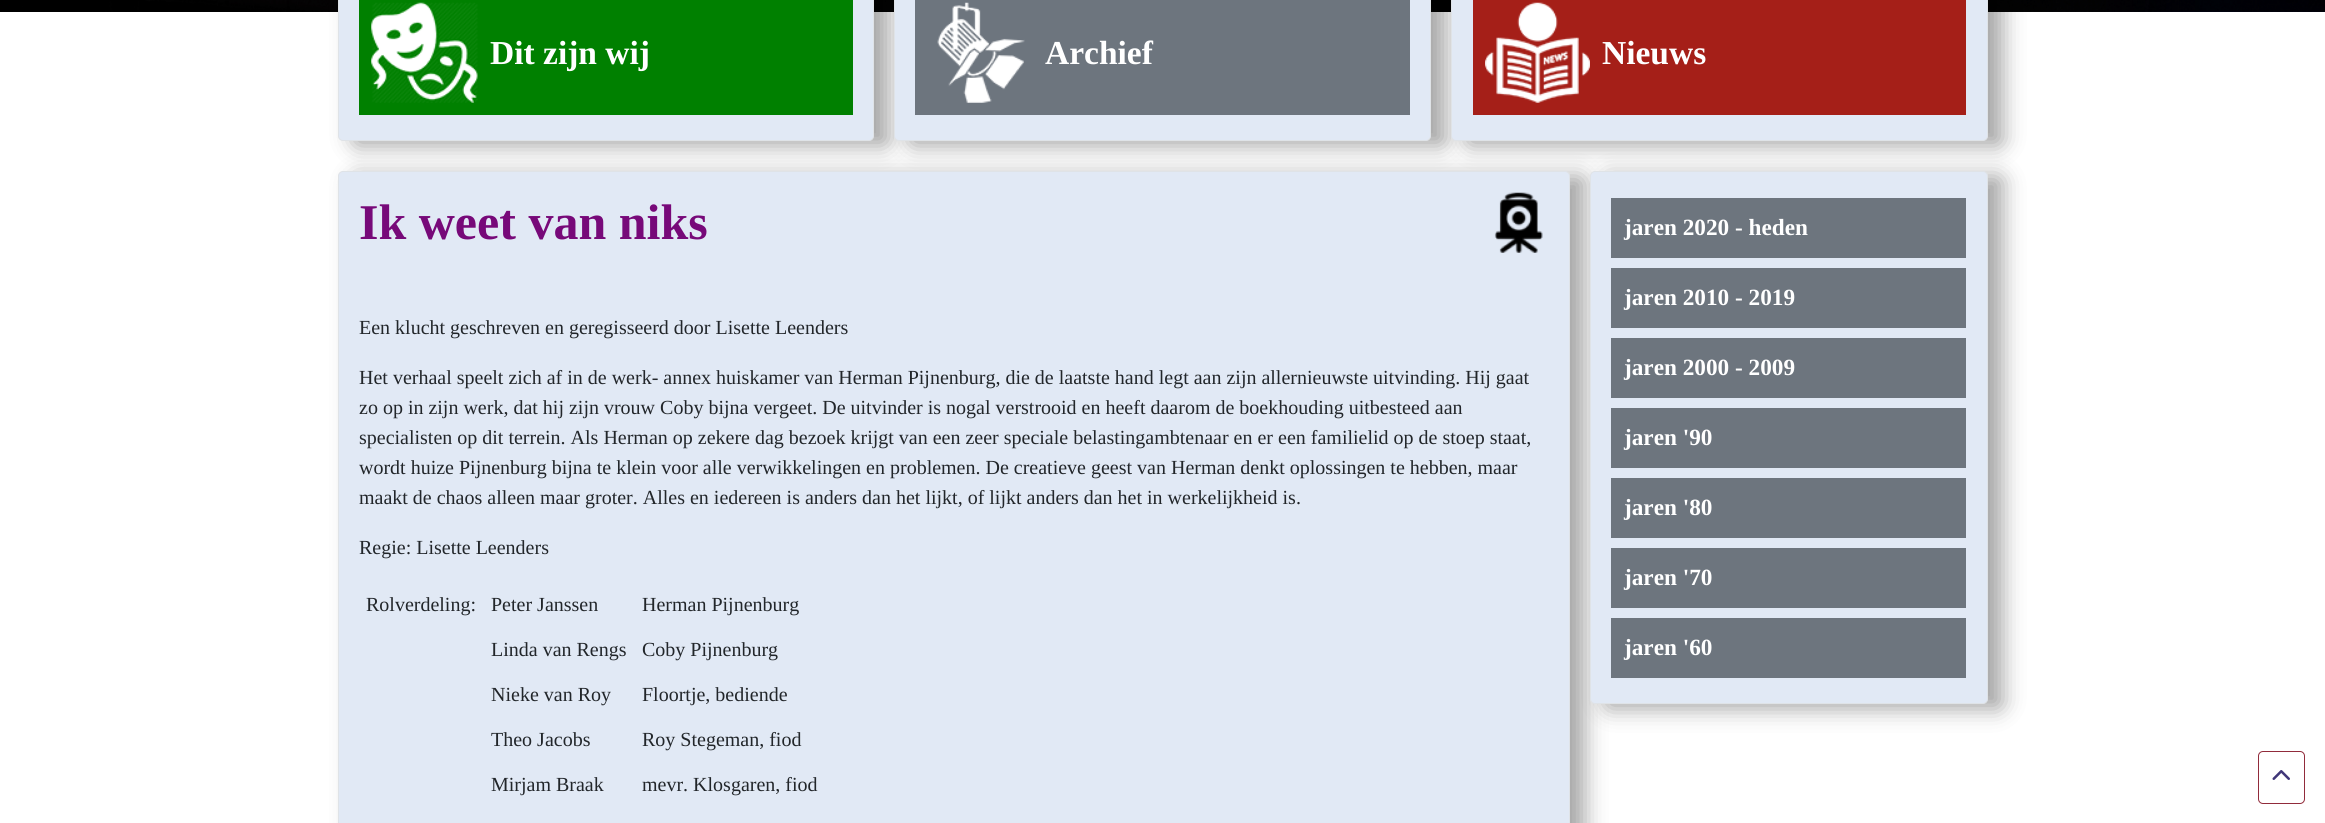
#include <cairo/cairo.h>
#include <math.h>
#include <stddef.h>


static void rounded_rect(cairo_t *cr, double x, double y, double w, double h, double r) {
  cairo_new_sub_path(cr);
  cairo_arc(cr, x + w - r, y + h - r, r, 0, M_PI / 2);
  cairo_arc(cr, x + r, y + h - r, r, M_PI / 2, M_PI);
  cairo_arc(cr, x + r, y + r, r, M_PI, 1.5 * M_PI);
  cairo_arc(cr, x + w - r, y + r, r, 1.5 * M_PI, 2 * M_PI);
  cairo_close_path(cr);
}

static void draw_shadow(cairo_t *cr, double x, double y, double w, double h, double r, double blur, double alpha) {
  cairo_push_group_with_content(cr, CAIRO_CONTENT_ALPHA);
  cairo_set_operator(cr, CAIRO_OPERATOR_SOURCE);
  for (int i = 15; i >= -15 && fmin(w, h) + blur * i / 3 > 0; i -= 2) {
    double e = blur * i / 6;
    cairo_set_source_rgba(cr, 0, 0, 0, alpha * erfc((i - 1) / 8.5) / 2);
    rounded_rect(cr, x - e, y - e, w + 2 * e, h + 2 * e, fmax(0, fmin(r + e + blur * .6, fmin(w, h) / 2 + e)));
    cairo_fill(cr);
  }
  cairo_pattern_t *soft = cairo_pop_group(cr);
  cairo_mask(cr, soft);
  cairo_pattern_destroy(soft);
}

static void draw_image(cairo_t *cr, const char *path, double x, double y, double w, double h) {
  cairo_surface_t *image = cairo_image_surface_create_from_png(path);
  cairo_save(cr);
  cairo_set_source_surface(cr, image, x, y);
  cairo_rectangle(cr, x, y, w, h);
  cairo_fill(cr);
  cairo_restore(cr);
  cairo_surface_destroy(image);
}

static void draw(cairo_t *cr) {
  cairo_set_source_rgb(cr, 1, 1, 1);
  cairo_paint(cr);
  draw_image(cr, "images/1.png", 0, 0, 2325, 12);
  cairo_set_source_rgb(cr, 0, 0, 0);
  draw_shadow(cr, 353, 176, 1232, 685, 5, 11, 0.35);
  cairo_set_source_rgb(cr, 225 / 255.0, 233 / 255.0, 245 / 255.0);
  rounded_rect(cr, 338.5, 171.5, 1231, 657, 4.5);
  cairo_fill_preserve(cr);
  cairo_set_source_rgb(cr, 223 / 255.0, 227 / 255.0, 231 / 255.0);
  cairo_set_line_width(cr, 1);
  cairo_stroke(cr);
  cairo_set_source_rgb(cr, 0, 0, 0);
  draw_shadow(cr, 353, -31, 536, 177, 5, 11, 0.35);
  cairo_set_source_rgb(cr, 225 / 255.0, 233 / 255.0, 245 / 255.0);
  rounded_rect(cr, 338.5, -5.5, 535, 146, 4.5);
  cairo_fill_preserve(cr);
  cairo_set_source_rgb(cr, 223 / 255.0, 227 / 255.0, 231 / 255.0);
  cairo_stroke(cr);
  cairo_set_source_rgb(cr, 0, 128 / 255.0, 0);
  cairo_rectangle(cr, 359, 0, 494, 115);
  cairo_fill(cr);
  draw_image(cr, "images/2.png", 371, 2, 107, 101);
  cairo_set_source_rgb(cr, 0, 0, 0);
  draw_shadow(cr, 909, -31, 537, 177, 5, 11, 0.35);
  cairo_set_source_rgb(cr, 225 / 255.0, 233 / 255.0, 245 / 255.0);
  rounded_rect(cr, 894.5, -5.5, 536, 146, 4.5);
  cairo_fill_preserve(cr);
  cairo_set_source_rgb(cr, 223 / 255.0, 227 / 255.0, 231 / 255.0);
  cairo_stroke(cr);
  cairo_set_source_rgb(cr, 109 / 255.0, 117 / 255.0, 126 / 255.0);
  cairo_rectangle(cr, 915, 0, 495, 115);
  cairo_fill(cr);
  draw_image(cr, "images/3.png", 937, 2, 88, 101);
  cairo_set_source_rgb(cr, 0, 0, 0);
  draw_shadow(cr, 1605, 176, 398, 533, 5, 11, 0.35);
  cairo_set_source_rgb(cr, 225 / 255.0, 233 / 255.0, 245 / 255.0);
  rounded_rect(cr, 1590.5, 171.5, 397, 532, 4.5);
  cairo_fill_preserve(cr);
  cairo_set_source_rgb(cr, 223 / 255.0, 227 / 255.0, 231 / 255.0);
  cairo_stroke(cr);
  cairo_set_source_rgb(cr, 0, 0, 0);
  draw_shadow(cr, 1466, -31, 537, 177, 5, 11, 0.35);
  cairo_set_source_rgb(cr, 225 / 255.0, 233 / 255.0, 245 / 255.0);
  rounded_rect(cr, 1451.5, -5.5, 536, 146, 4.5);
  cairo_fill_preserve(cr);
  cairo_set_source_rgb(cr, 223 / 255.0, 227 / 255.0, 231 / 255.0);
  cairo_stroke(cr);
  cairo_set_source_rgb(cr, 165 / 255.0, 31 / 255.0, 24 / 255.0);
  cairo_rectangle(cr, 1473, 0, 493, 115);
  cairo_fill(cr);
  draw_image(cr, "images/4.png", 1485, 2, 105, 101);
  draw_image(cr, "images/5.png", 1494, 192, 49, 61);
  cairo_set_source_rgb(cr, 109 / 255.0, 117 / 255.0, 126 / 255.0);
  cairo_rectangle(cr, 1611, 198, 355, 60);
  cairo_fill(cr);
  cairo_rectangle(cr, 1611, 268, 355, 60);
  cairo_fill(cr);
  cairo_rectangle(cr, 1611, 338, 355, 60);
  cairo_fill(cr);
  cairo_rectangle(cr, 1611, 408, 355, 60);
  cairo_fill(cr);
  cairo_rectangle(cr, 1611, 478, 355, 60);
  cairo_fill(cr);
  cairo_rectangle(cr, 1611, 548, 355, 60);
  cairo_fill(cr);
  cairo_rectangle(cr, 1611, 618, 355, 60);
  cairo_fill(cr);
  rounded_rect(cr, 2258.5, 751.5, 46, 52, 4.5);
  cairo_set_source_rgb(cr, 145 / 255.0, 43 / 255.0, 59 / 255.0);
  cairo_stroke(cr);
  draw_image(cr, "images/6.png", 2272, 770, 18, 10);
  cairo_select_font_face(cr, "Liberation Serif", CAIRO_FONT_SLANT_NORMAL, CAIRO_FONT_WEIGHT_BOLD);
  cairo_set_font_size(cr, 33.5);
  cairo_set_source_rgb(cr, 1, 1, 1);
  cairo_move_to(cr, 490, 64);
  cairo_show_text(cr, "Dit zijn wij");
  cairo_move_to(cr, 1045, 64);
  cairo_show_text(cr, "Archief");
  cairo_move_to(cr, 1602, 64);
  cairo_show_text(cr, "Nieuws");
  cairo_set_font_size(cr, 50);
  cairo_set_source_rgb(cr, 119 / 255.0, 9 / 255.0, 121 / 255.0);
  cairo_move_to(cr, 359, 239);
  cairo_show_text(cr, "Ik weet van niks");
  cairo_select_font_face(cr, "Liberation Serif", CAIRO_FONT_SLANT_NORMAL, CAIRO_FONT_WEIGHT_NORMAL);
  cairo_set_font_size(cr, 20);
  cairo_set_source_rgb(cr, 34 / 255.0, 38 / 255.0, 42 / 255.0);
  cairo_move_to(cr, 359, 334);
  cairo_show_text(cr, "Een klucht geschreven en geregisseerd door Lisette Leenders");
  cairo_move_to(cr, 359, 384);
  cairo_show_text(cr, "Het verhaal speelt zich af in de werk- annex huiskamer van Herman Pijnenburg, die de laatste hand legt aan zijn allernieuwste uitvinding. Hij gaat");
  cairo_move_to(cr, 359, 414);
  cairo_show_text(cr, "zo op in zijn werk, dat hij zijn vrouw Coby bijna vergeet. De uitvinder is nogal verstrooid en heeft daarom de boekhouding uitbesteed aan");
  cairo_move_to(cr, 359, 444);
  cairo_show_text(cr, "specialisten op dit terrein. Als Herman op zekere dag bezoek krijgt van een zeer speciale belastingambtenaar en er een familielid op de stoep staat,");
  cairo_move_to(cr, 359, 474);
  cairo_show_text(cr, "wordt huize Pijnenburg bijna te klein voor alle verwikkelingen en problemen. De creatieve geest van Herman denkt oplossingen te hebben, maar");
  cairo_move_to(cr, 359, 504);
  cairo_show_text(cr, "maakt de chaos alleen maar groter. Alles en iedereen is anders dan het lijkt, of lijkt anders dan het in werkelijkheid is.");
  cairo_move_to(cr, 359, 554);
  cairo_show_text(cr, "Regie: Lisette Leenders");
  cairo_move_to(cr, 366, 611);
  cairo_show_text(cr, "Rolverdeling:");
  cairo_move_to(cr, 491, 611);
  cairo_show_text(cr, "Peter Janssen");
  cairo_move_to(cr, 642, 611);
  cairo_show_text(cr, "Herman Pijnenburg");
  cairo_move_to(cr, 491, 656);
  cairo_show_text(cr, "Linda van Rengs");
  cairo_move_to(cr, 642, 656);
  cairo_show_text(cr, "Coby Pijnenburg");
  cairo_move_to(cr, 491, 701);
  cairo_show_text(cr, "Nieke van Roy");
  cairo_move_to(cr, 642, 701);
  cairo_show_text(cr, "Floortje, bediende");
  cairo_move_to(cr, 491, 746);
  cairo_show_text(cr, "Theo Jacobs");
  cairo_move_to(cr, 642, 746);
  cairo_show_text(cr, "Roy Stegeman, fiod");
  cairo_move_to(cr, 491, 791);
  cairo_show_text(cr, "Mirjam Braak");
  cairo_move_to(cr, 642, 791);
  cairo_show_text(cr, "mevr. Klosgaren, fiod");
  cairo_select_font_face(cr, "Liberation Serif", CAIRO_FONT_SLANT_NORMAL, CAIRO_FONT_WEIGHT_BOLD);
  cairo_set_font_size(cr, 23.25);
  cairo_set_source_rgb(cr, 1, 1, 1);
  cairo_move_to(cr, 1624, 235);
  cairo_show_text(cr, "jaren 2020 - heden");
  cairo_move_to(cr, 1624, 305);
  cairo_show_text(cr, "jaren 2010 - 2019");
  cairo_move_to(cr, 1624, 375);
  cairo_show_text(cr, "jaren 2000 - 2009");
  cairo_move_to(cr, 1624, 445);
  cairo_show_text(cr, "jaren '90");
  cairo_move_to(cr, 1624, 515);
  cairo_show_text(cr, "jaren '80");
  cairo_move_to(cr, 1624, 585);
  cairo_show_text(cr, "jaren '70");
  cairo_move_to(cr, 1624, 655);
  cairo_show_text(cr, "jaren '60");
}

int main(void) {
  cairo_surface_t *surface = cairo_image_surface_create(CAIRO_FORMAT_RGB24, 2325, 823);
  cairo_t *cr = cairo_create(surface);
  cairo_font_options_t *options = cairo_font_options_create();
  cairo_font_options_set_hint_metrics(options, CAIRO_HINT_METRICS_OFF);
  cairo_font_options_set_hint_style(options, CAIRO_HINT_STYLE_NONE);
  cairo_set_font_options(cr, options);
  cairo_set_miter_limit(cr, 4);
  draw(cr);
  cairo_surface_write_to_png(surface, "out.png");
  cairo_font_options_destroy(options);
  cairo_destroy(cr);
  cairo_surface_destroy(surface);
  return 0;
}
